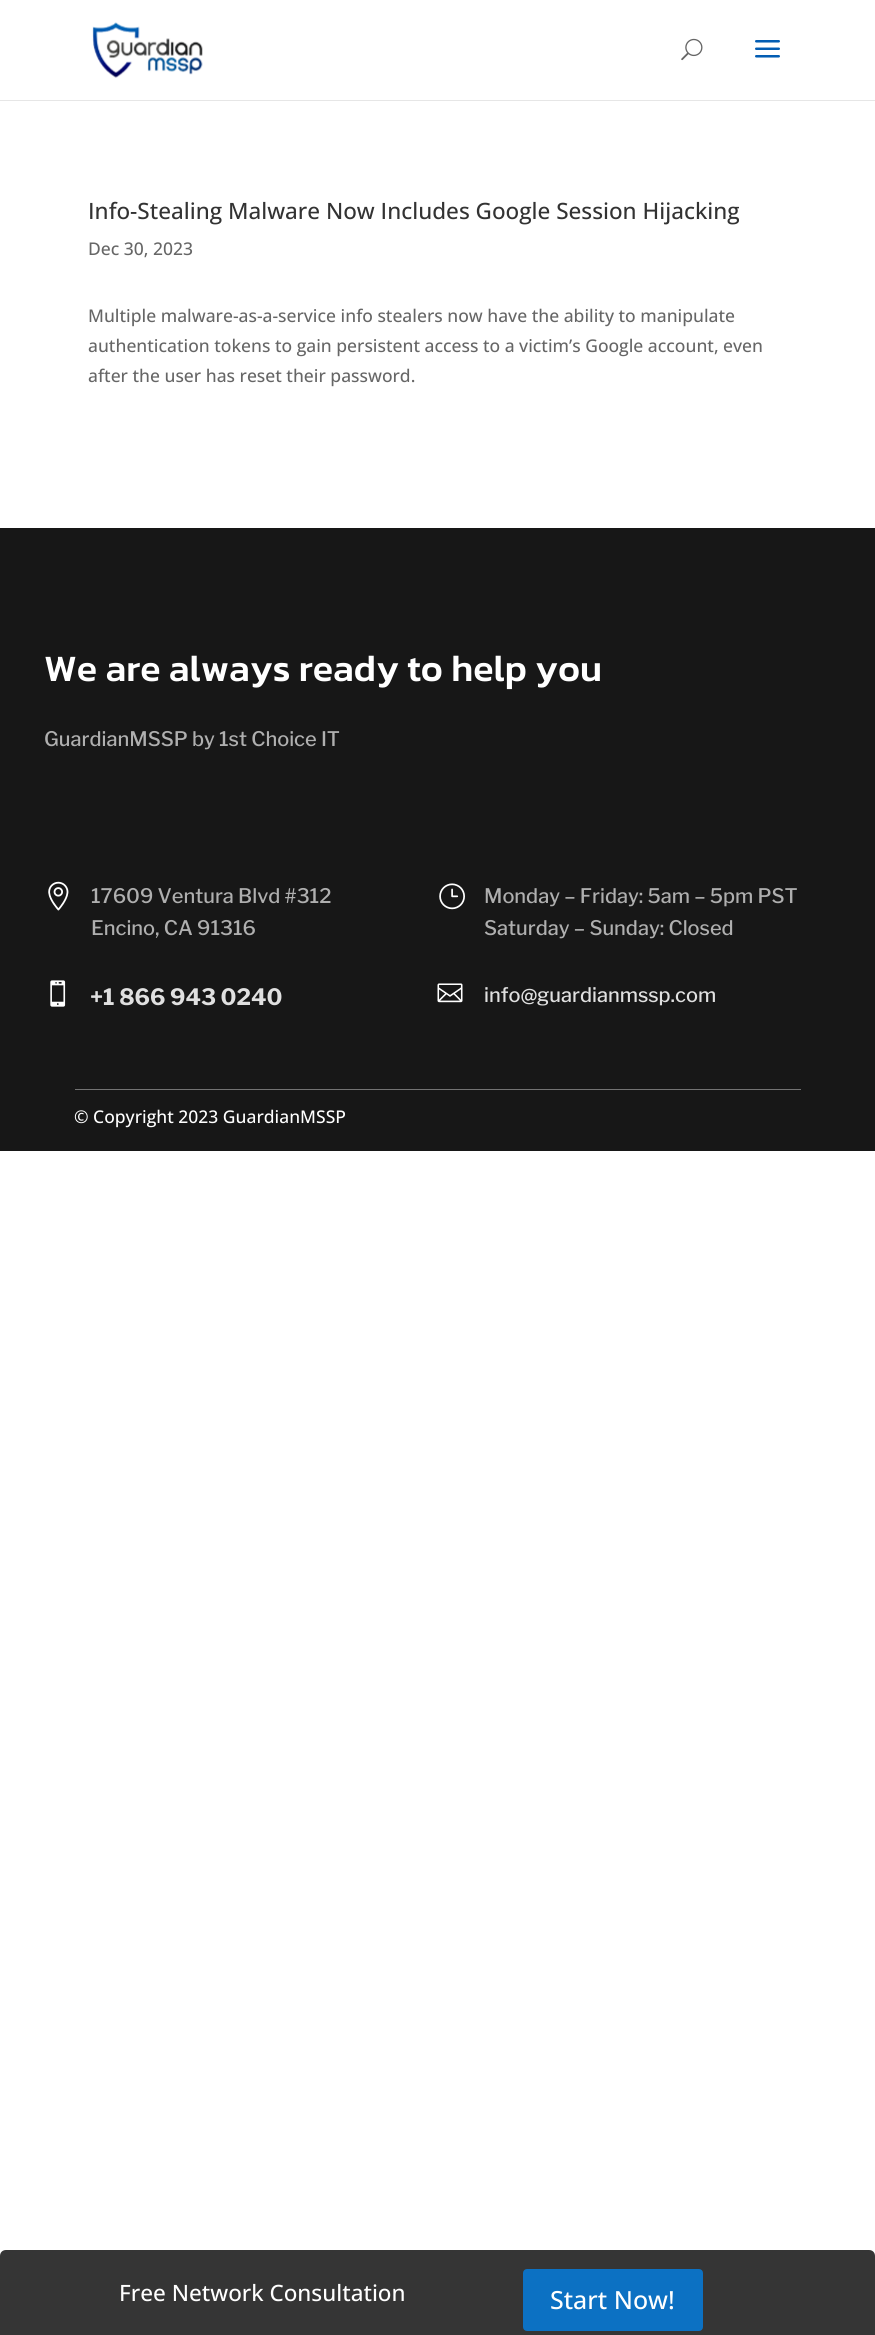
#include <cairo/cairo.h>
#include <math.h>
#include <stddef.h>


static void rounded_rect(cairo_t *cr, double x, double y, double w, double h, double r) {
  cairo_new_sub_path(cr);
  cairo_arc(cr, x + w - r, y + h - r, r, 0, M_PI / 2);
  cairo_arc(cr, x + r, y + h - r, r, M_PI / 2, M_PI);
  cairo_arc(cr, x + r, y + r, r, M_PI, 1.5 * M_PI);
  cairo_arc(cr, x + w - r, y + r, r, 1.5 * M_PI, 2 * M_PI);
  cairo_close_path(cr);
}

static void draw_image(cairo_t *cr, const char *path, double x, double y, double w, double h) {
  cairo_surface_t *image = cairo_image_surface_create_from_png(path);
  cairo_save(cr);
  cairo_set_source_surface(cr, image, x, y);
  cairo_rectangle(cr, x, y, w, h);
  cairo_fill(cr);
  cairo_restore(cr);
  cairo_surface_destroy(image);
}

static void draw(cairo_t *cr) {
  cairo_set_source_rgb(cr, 1, 1, 1);
  cairo_paint(cr);
  cairo_set_source_rgb(cr, 230 / 255.0, 230 / 255.0, 230 / 255.0);
  cairo_rectangle(cr, 0, 100, 875, 1);
  cairo_fill(cr);
  draw_image(cr, "images/1.png", 92, 22, 111, 56);
  draw_image(cr, "images/2.png", 681, 38, 22, 23);
  draw_image(cr, "images/3.png", 755, 40, 25, 18);
  cairo_set_source_rgb(cr, 23 / 255.0, 23 / 255.0, 23 / 255.0);
  cairo_rectangle(cr, 0, 528, 875, 623);
  cairo_fill(cr);
  draw_image(cr, "images/4.png", 48, 881, 21, 30);
  draw_image(cr, "images/5.png", 50, 980, 16, 27);
  draw_image(cr, "images/6.png", 439, 883, 26, 27);
  draw_image(cr, "images/7.png", 437, 983, 26, 20);
  cairo_set_source_rgb(cr, 115 / 255.0, 115 / 255.0, 115 / 255.0);
  cairo_rectangle(cr, 75, 1089, 726, 1);
  cairo_fill(cr);
  cairo_set_source_rgb(cr, 53 / 255.0, 53 / 255.0, 53 / 255.0);
  cairo_new_path(cr);
  cairo_move_to(cr, 6, 2250);
  cairo_line_to(cr, 869, 2250);
  cairo_curve_to(cr, 872.5, 2250, 875, 2252.5, 875, 2256);
  cairo_line_to(cr, 875, 2335);
  cairo_line_to(cr, 0, 2335);
  cairo_line_to(cr, 0, 2256);
  cairo_curve_to(cr, 0, 2252.5, 2.5, 2250, 6, 2250);
  cairo_close_path(cr);
  cairo_fill(cr);
  cairo_set_source_rgb(cr, 12 / 255.0, 113 / 255.0, 195 / 255.0);
  rounded_rect(cr, 524.5, 2270.5, 177, 59, 2.5);
  cairo_fill_preserve(cr);
  cairo_set_line_width(cr, 3);
  cairo_stroke(cr);
  cairo_select_font_face(cr, "Open Sans Medium", CAIRO_FONT_SLANT_NORMAL, CAIRO_FONT_WEIGHT_NORMAL);
  cairo_set_font_size(cr, 22.5);
  cairo_set_source_rgb(cr, 51 / 255.0, 51 / 255.0, 51 / 255.0);
  cairo_move_to(cr, 88, 219);
  cairo_show_text(cr, "Info-Stealing Malware Now Includes Google Session Hijacking");
  cairo_set_font_size(cr, 17.5);
  cairo_set_source_rgb(cr, 102 / 255.0, 102 / 255.0, 102 / 255.0);
  cairo_move_to(cr, 88, 255);
  cairo_show_text(cr, "Dec 30, 2023");
  cairo_move_to(cr, 88, 322);
  cairo_show_text(cr, "Multiple malware-as-a-service info stealers now have the ability to manipulate");
  cairo_move_to(cr, 88, 352);
  cairo_show_text(cr, "authentication tokens to gain persistent access to a victim’s Google account, even");
  cairo_move_to(cr, 88, 382);
  cairo_show_text(cr, "after the user has reset their password.");
  cairo_select_font_face(cr, "Kanit Medium", CAIRO_FONT_SLANT_NORMAL, CAIRO_FONT_WEIGHT_NORMAL);
  cairo_set_font_size(cr, 37.5);
  cairo_set_source_rgb(cr, 1, 1, 1);
  cairo_move_to(cr, 44, 681);
  cairo_show_text(cr, "We are always ready to help you");
  cairo_select_font_face(cr, "Libre Franklin Medium", CAIRO_FONT_SLANT_NORMAL, CAIRO_FONT_WEIGHT_NORMAL);
  cairo_set_font_size(cr, 20);
  cairo_set_source_rgb(cr, 175 / 255.0, 175 / 255.0, 175 / 255.0);
  cairo_move_to(cr, 44, 746);
  cairo_show_text(cr, "GuardianMSSP by 1st Choice IT");
  cairo_move_to(cr, 91, 903);
  cairo_show_text(cr, "17609 Ventura Blvd #312");
  cairo_move_to(cr, 91, 935);
  cairo_show_text(cr, "Encino, CA 91316");
  cairo_select_font_face(cr, "Libre Franklin", CAIRO_FONT_SLANT_NORMAL, CAIRO_FONT_WEIGHT_BOLD);
  cairo_set_font_size(cr, 22.5);
  cairo_set_source_rgb(cr, 224 / 255.0, 224 / 255.0, 224 / 255.0);
  cairo_move_to(cr, 90, 1005);
  cairo_show_text(cr, "+1 866 943 0240");
  cairo_select_font_face(cr, "Libre Franklin Medium", CAIRO_FONT_SLANT_NORMAL, CAIRO_FONT_WEIGHT_NORMAL);
  cairo_set_font_size(cr, 20);
  cairo_set_source_rgb(cr, 175 / 255.0, 175 / 255.0, 175 / 255.0);
  cairo_move_to(cr, 484, 903);
  cairo_show_text(cr, "Monday – Friday: 5am – 5pm PST");
  cairo_move_to(cr, 484, 935);
  cairo_show_text(cr, "Saturday – Sunday: Closed");
  cairo_set_source_rgb(cr, 224 / 255.0, 224 / 255.0, 224 / 255.0);
  cairo_move_to(cr, 484, 1002);
  cairo_show_text(cr, "info@guardianmssp.com");
  cairo_select_font_face(cr, "Open Sans Medium", CAIRO_FONT_SLANT_NORMAL, CAIRO_FONT_WEIGHT_NORMAL);
  cairo_set_font_size(cr, 17.5);
  cairo_set_source_rgb(cr, 1, 1, 1);
  cairo_move_to(cr, 74, 1123);
  cairo_show_text(cr, "© Copyright 2023 GuardianMSSP");
  cairo_set_font_size(cr, 22.5);
  cairo_move_to(cr, 119, 2301);
  cairo_show_text(cr, "Free Network Consultation");
  cairo_set_font_size(cr, 25);
  cairo_move_to(cr, 550, 2309);
  cairo_show_text(cr, "Start Now!");
}

int main(void) {
  cairo_surface_t *surface = cairo_image_surface_create(CAIRO_FORMAT_RGB24, 875, 2335);
  cairo_t *cr = cairo_create(surface);
  cairo_font_options_t *options = cairo_font_options_create();
  cairo_font_options_set_hint_metrics(options, CAIRO_HINT_METRICS_OFF);
  cairo_font_options_set_hint_style(options, CAIRO_HINT_STYLE_NONE);
  cairo_set_font_options(cr, options);
  cairo_set_miter_limit(cr, 4);
  draw(cr);
  cairo_surface_write_to_png(surface, "out.png");
  cairo_font_options_destroy(options);
  cairo_destroy(cr);
  cairo_surface_destroy(surface);
  return 0;
}
